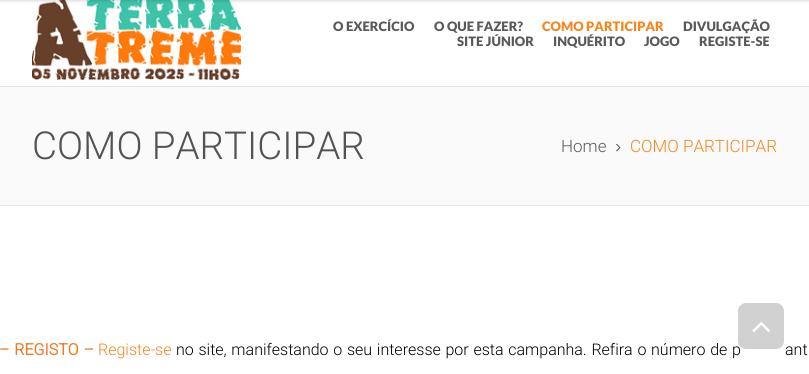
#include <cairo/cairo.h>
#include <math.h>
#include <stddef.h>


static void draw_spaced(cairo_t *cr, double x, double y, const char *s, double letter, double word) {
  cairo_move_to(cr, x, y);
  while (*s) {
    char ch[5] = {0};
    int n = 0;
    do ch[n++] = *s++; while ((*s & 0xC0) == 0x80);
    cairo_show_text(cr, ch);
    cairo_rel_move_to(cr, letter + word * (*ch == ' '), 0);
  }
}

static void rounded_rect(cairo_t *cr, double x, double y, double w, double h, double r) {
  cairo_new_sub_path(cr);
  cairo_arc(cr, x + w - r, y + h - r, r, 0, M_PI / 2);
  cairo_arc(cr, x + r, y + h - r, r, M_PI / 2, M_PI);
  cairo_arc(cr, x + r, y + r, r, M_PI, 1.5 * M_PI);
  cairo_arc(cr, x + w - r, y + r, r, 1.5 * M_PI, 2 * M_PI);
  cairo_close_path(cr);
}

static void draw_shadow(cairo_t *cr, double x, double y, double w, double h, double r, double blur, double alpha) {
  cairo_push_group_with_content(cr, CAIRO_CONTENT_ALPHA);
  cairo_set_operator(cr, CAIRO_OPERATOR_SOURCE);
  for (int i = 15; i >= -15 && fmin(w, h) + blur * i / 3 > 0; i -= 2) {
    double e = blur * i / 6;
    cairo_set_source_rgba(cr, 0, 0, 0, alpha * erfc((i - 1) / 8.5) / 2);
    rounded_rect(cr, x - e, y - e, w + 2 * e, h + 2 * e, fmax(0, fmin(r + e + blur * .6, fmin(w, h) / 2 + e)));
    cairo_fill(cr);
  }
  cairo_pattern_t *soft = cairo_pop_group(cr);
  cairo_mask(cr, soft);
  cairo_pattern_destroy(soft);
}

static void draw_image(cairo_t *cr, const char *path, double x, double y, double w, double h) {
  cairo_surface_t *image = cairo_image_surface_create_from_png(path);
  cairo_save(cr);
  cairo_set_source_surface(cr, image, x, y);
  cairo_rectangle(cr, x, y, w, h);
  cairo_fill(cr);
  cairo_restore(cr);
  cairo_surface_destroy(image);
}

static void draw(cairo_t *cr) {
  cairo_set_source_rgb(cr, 1, 1, 1);
  cairo_paint(cr);
  draw_image(cr, "images/1.png", 32, 0, 209, 81);
  cairo_set_source_rgb(cr, 0, 0, 0);
  draw_shadow(cr, 0, -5, 809, 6, 0, 1.5, 0.15);
  cairo_set_source_rgb(cr, 250 / 255.0, 250 / 255.0, 250 / 255.0);
  cairo_rectangle(cr, 0, 87, 809, 118);
  cairo_fill(cr);
  cairo_set_source_rgb(cr, 230 / 255.0, 230 / 255.0, 230 / 255.0);
  cairo_rectangle(cr, 0, 86, 809, 1);
  cairo_fill(cr);
  cairo_rectangle(cr, 0, 205, 809, 1);
  cairo_fill(cr);
  draw_image(cr, "images/2.png", 616, 143, 5, 9);
  cairo_select_font_face(cr, "Lato Black", CAIRO_FONT_SLANT_NORMAL, CAIRO_FONT_WEIGHT_NORMAL);
  cairo_set_font_size(cr, 13);
  cairo_set_source_rgb(cr, 89 / 255.0, 89 / 255.0, 89 / 255.0);
  cairo_move_to(cr, 333, 31);
  cairo_show_text(cr, "O EXERCÍCIO");
  cairo_move_to(cr, 434, 31);
  cairo_show_text(cr, "O QUE FAZER?");
  cairo_set_source_rgb(cr, 247 / 255.0, 133 / 255.0, 27 / 255.0);
  cairo_move_to(cr, 542, 31);
  cairo_show_text(cr, "COMO PARTICIPAR");
  cairo_set_source_rgb(cr, 89 / 255.0, 89 / 255.0, 89 / 255.0);
  cairo_move_to(cr, 683, 31);
  cairo_show_text(cr, "DIVULGAÇÃO");
  cairo_move_to(cr, 457, 46);
  cairo_show_text(cr, "SITE JÚNIOR");
  cairo_move_to(cr, 553, 46);
  cairo_show_text(cr, "INQUÉRITO");
  cairo_move_to(cr, 644, 46);
  cairo_show_text(cr, "JOGO");
  cairo_move_to(cr, 699, 46);
  cairo_show_text(cr, "REGISTE-SE");
  cairo_select_font_face(cr, "Roboto Light", CAIRO_FONT_SLANT_NORMAL, CAIRO_FONT_WEIGHT_NORMAL);
  cairo_set_font_size(cr, 38.5);
  cairo_set_source_rgb(cr, 83 / 255.0, 83 / 255.0, 83 / 255.0);
  cairo_move_to(cr, 32, 159);
  cairo_show_text(cr, "COMO PARTICIPAR");
  cairo_set_font_size(cr, 17);
  cairo_set_source_rgb(cr, 89 / 255.0, 89 / 255.0, 89 / 255.0);
  cairo_move_to(cr, 561, 152);
  cairo_show_text(cr, "Home");
  cairo_set_source_rgb(cr, 247 / 255.0, 133 / 255.0, 27 / 255.0);
  cairo_move_to(cr, 630, 152);
  cairo_show_text(cr, "COMO PARTICIPAR");
  cairo_select_font_face(cr, "Roboto", CAIRO_FONT_SLANT_NORMAL, CAIRO_FONT_WEIGHT_BOLD);
  cairo_set_font_size(cr, 16);
  cairo_set_source_rgb(cr, 241 / 255.0, 121 / 255.0, 33 / 255.0);
  draw_spaced(cr, -1, 355, "– REGISTO –", 0, 1);
  cairo_select_font_face(cr, "Roboto Light", CAIRO_FONT_SLANT_NORMAL, CAIRO_FONT_WEIGHT_NORMAL);
  cairo_set_source_rgb(cr, 247 / 255.0, 133 / 255.0, 27 / 255.0);
  cairo_move_to(cr, 98, 355);
  cairo_show_text(cr, "Registe-se");
  cairo_set_source_rgb(cr, 0, 0, 0);
  draw_spaced(cr, 176, 355, "no site, manifestando o seu interesse por esta campanha. Refira o número de p", 0, 0.8);
  cairo_set_source_rgba(cr, 204 / 255.0, 204 / 255.0, 204 / 255.0, 0.9);
  rounded_rect(cr, 738, 303, 46, 46, 8);
  cairo_fill(cr);
  draw_image(cr, "images/3.png", 752, 322, 18, 10);
  cairo_set_source_rgb(cr, 0, 0, 0);
  draw_spaced(cr, 785, 355, "ant", 0, 0.8);
}

int main(void) {
  cairo_surface_t *surface = cairo_image_surface_create(CAIRO_FORMAT_RGB24, 809, 374);
  cairo_t *cr = cairo_create(surface);
  cairo_font_options_t *options = cairo_font_options_create();
  cairo_font_options_set_hint_metrics(options, CAIRO_HINT_METRICS_OFF);
  cairo_font_options_set_hint_style(options, CAIRO_HINT_STYLE_NONE);
  cairo_set_font_options(cr, options);
  cairo_set_miter_limit(cr, 4);
  draw(cr);
  cairo_surface_write_to_png(surface, "out.png");
  cairo_font_options_destroy(options);
  cairo_destroy(cr);
  cairo_surface_destroy(surface);
  return 0;
}
